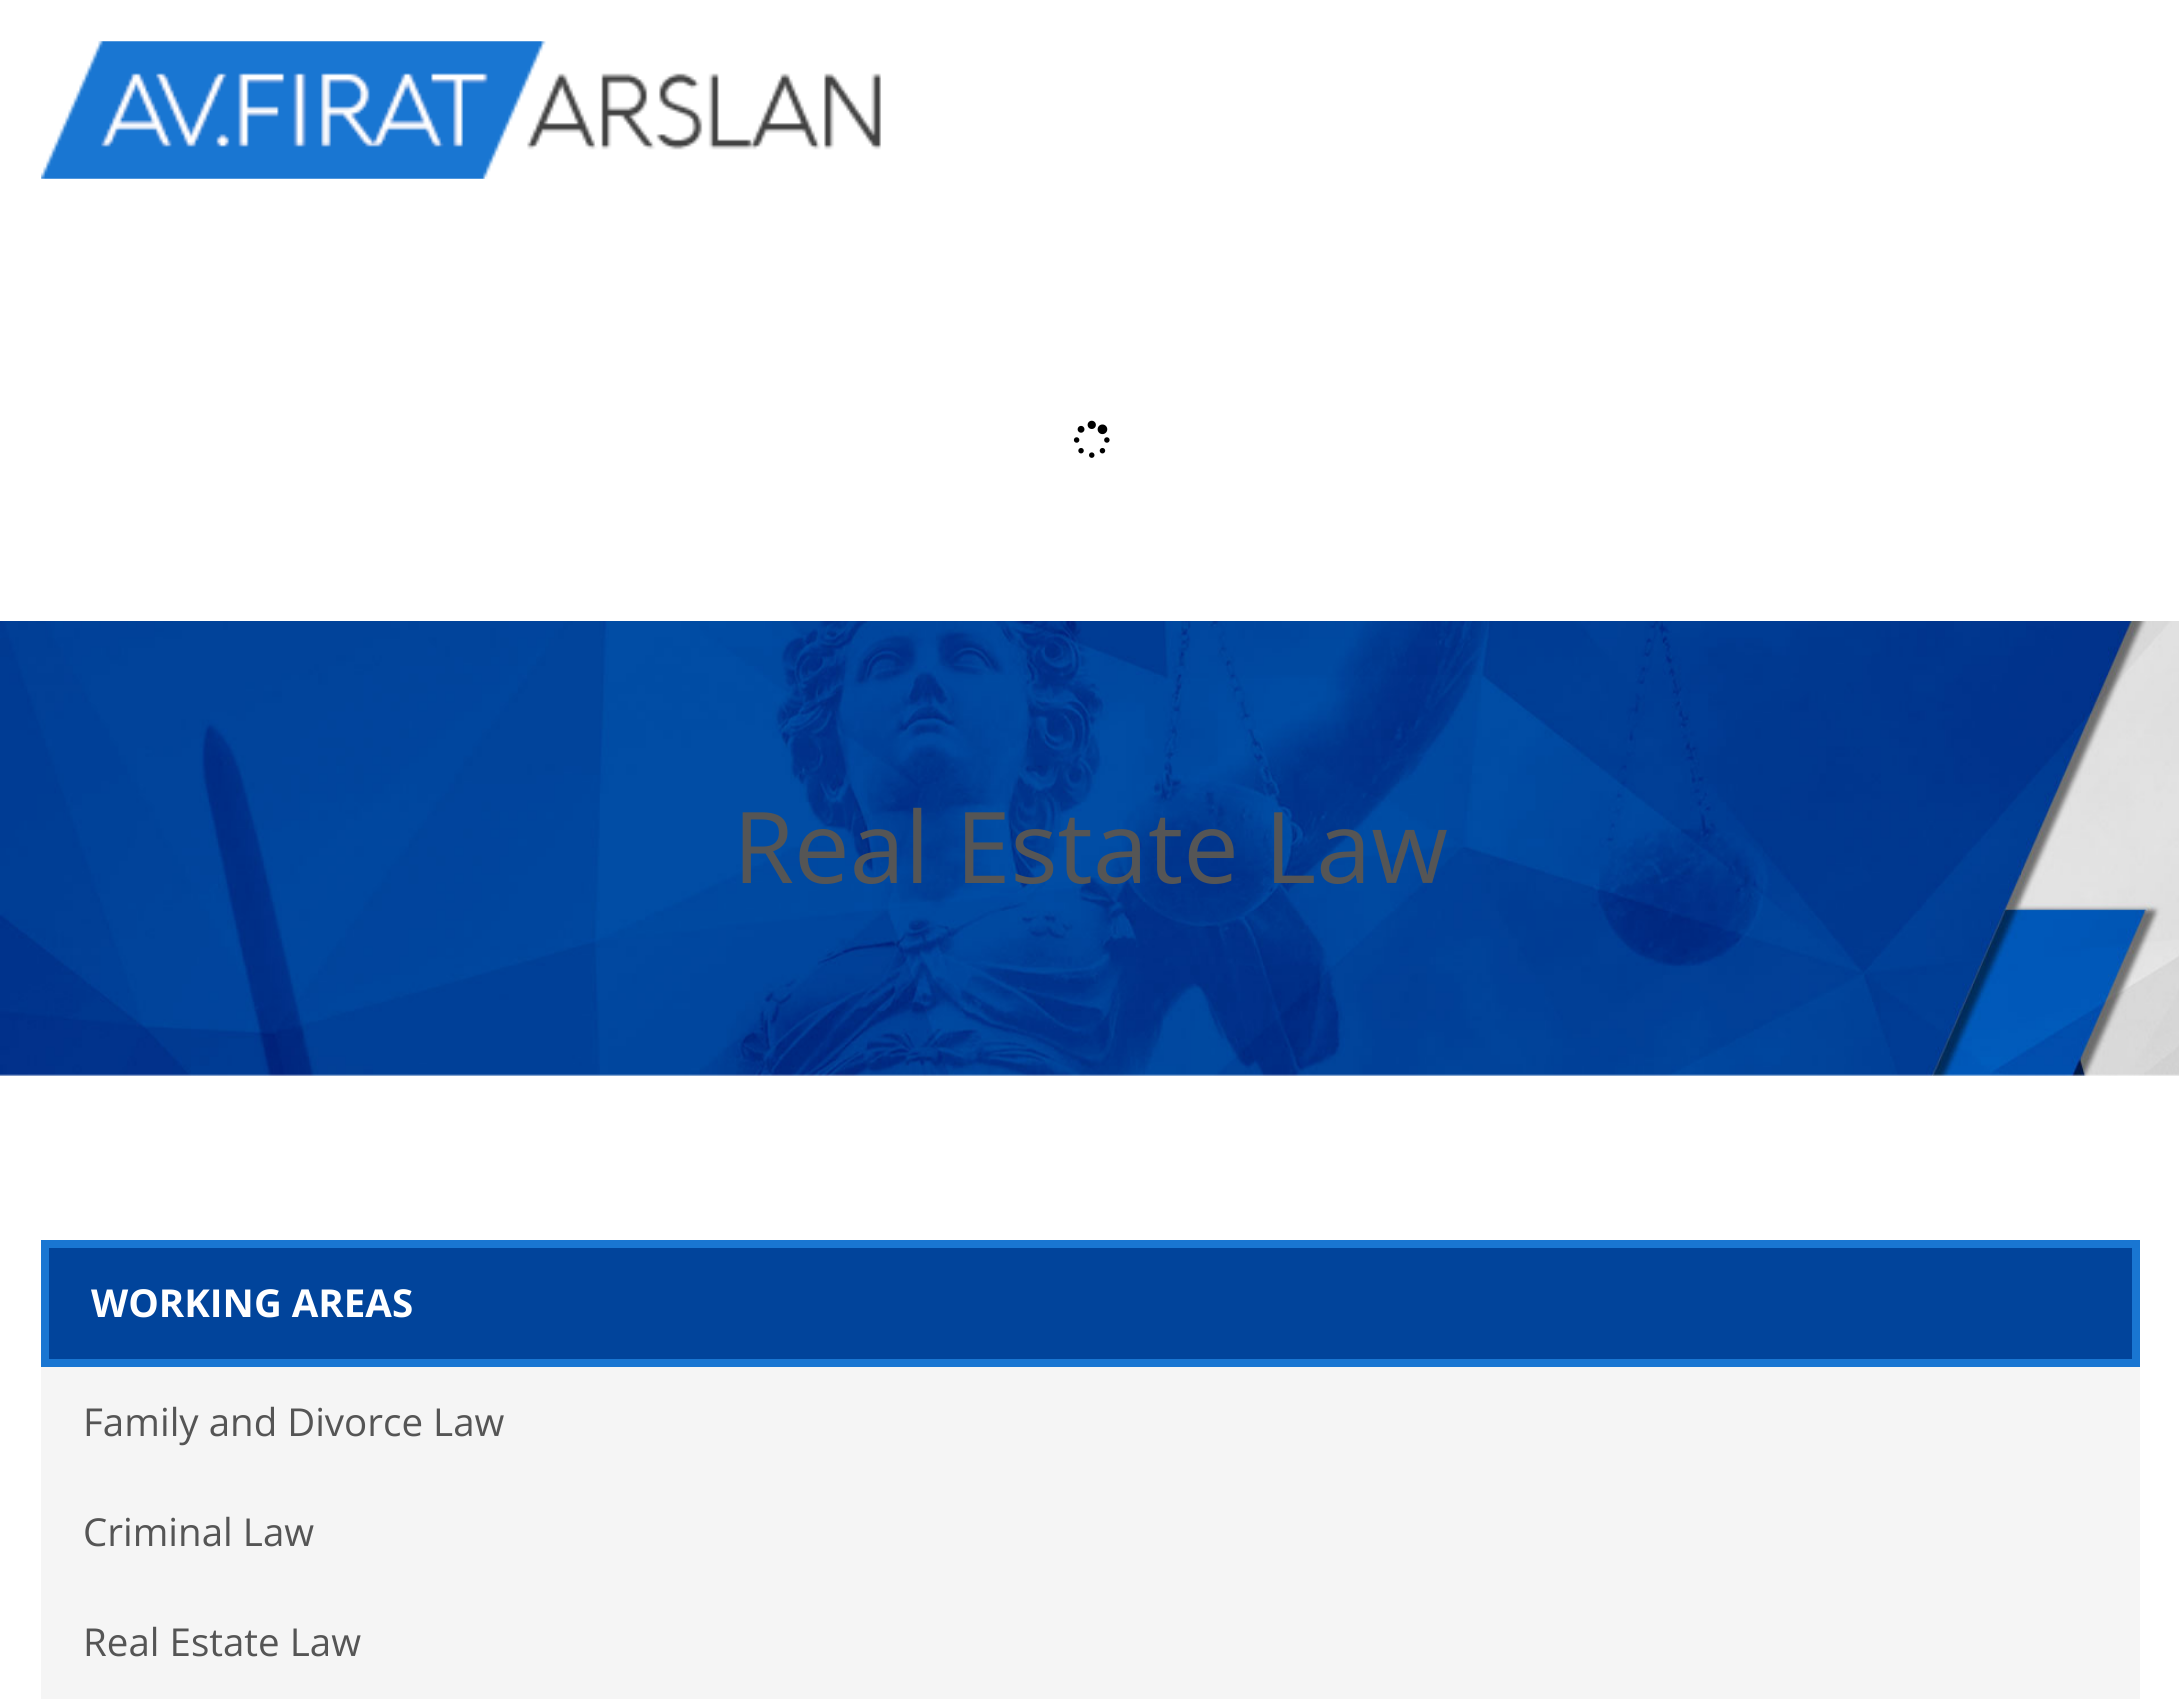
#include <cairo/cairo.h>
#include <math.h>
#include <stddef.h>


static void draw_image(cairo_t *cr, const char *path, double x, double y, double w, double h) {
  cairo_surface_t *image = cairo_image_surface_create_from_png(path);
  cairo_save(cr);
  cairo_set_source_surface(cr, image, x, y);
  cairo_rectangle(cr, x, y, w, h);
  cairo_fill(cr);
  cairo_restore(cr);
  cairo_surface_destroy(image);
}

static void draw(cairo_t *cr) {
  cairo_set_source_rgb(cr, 1, 1, 1);
  cairo_paint(cr);
  draw_image(cr, "images/1.png", 41, 41, 840, 138);
  draw_image(cr, "images/2.png", 1073, 420, 37, 38);
  draw_image(cr, "images/3.png", 0, 621, 2179, 455);
  cairo_set_source_rgb(cr, 1 / 255.0, 68 / 255.0, 155 / 255.0);
  cairo_rectangle(cr, 45, 1244, 2091, 119);
  cairo_fill_preserve(cr);
  cairo_set_source_rgb(cr, 25 / 255.0, 118 / 255.0, 210 / 255.0);
  cairo_set_line_width(cr, 8);
  cairo_stroke(cr);
  cairo_set_source_rgb(cr, 245 / 255.0, 245 / 255.0, 245 / 255.0);
  cairo_rectangle(cr, 41, 1367, 2099, 332);
  cairo_fill(cr);
  cairo_select_font_face(cr, "Open Sans", CAIRO_FONT_SLANT_NORMAL, CAIRO_FONT_WEIGHT_NORMAL);
  cairo_set_font_size(cr, 99);
  cairo_set_source_rgb(cr, 85 / 255.0, 85 / 255.0, 85 / 255.0);
  cairo_move_to(cr, 733, 883);
  cairo_show_text(cr, "Real Estate Law");
  cairo_select_font_face(cr, "Open Sans", CAIRO_FONT_SLANT_NORMAL, CAIRO_FONT_WEIGHT_BOLD);
  cairo_set_font_size(cr, 38.5);
  cairo_set_source_rgb(cr, 1, 1, 1);
  cairo_move_to(cr, 91, 1317);
  cairo_show_text(cr, "WORKING AREAS");
  cairo_select_font_face(cr, "Open Sans", CAIRO_FONT_SLANT_NORMAL, CAIRO_FONT_WEIGHT_NORMAL);
  cairo_set_source_rgb(cr, 85 / 255.0, 85 / 255.0, 85 / 255.0);
  cairo_move_to(cr, 83, 1436);
  cairo_show_text(cr, "Family and Divorce Law");
  cairo_move_to(cr, 83, 1546);
  cairo_show_text(cr, "Criminal Law");
  cairo_move_to(cr, 83, 1656);
  cairo_show_text(cr, "Real Estate Law");
}

int main(void) {
  cairo_surface_t *surface = cairo_image_surface_create(CAIRO_FORMAT_RGB24, 2179, 1699);
  cairo_t *cr = cairo_create(surface);
  cairo_font_options_t *options = cairo_font_options_create();
  cairo_font_options_set_hint_metrics(options, CAIRO_HINT_METRICS_OFF);
  cairo_font_options_set_hint_style(options, CAIRO_HINT_STYLE_NONE);
  cairo_set_font_options(cr, options);
  cairo_set_miter_limit(cr, 4);
  draw(cr);
  cairo_surface_write_to_png(surface, "out.png");
  cairo_font_options_destroy(options);
  cairo_destroy(cr);
  cairo_surface_destroy(surface);
  return 0;
}
